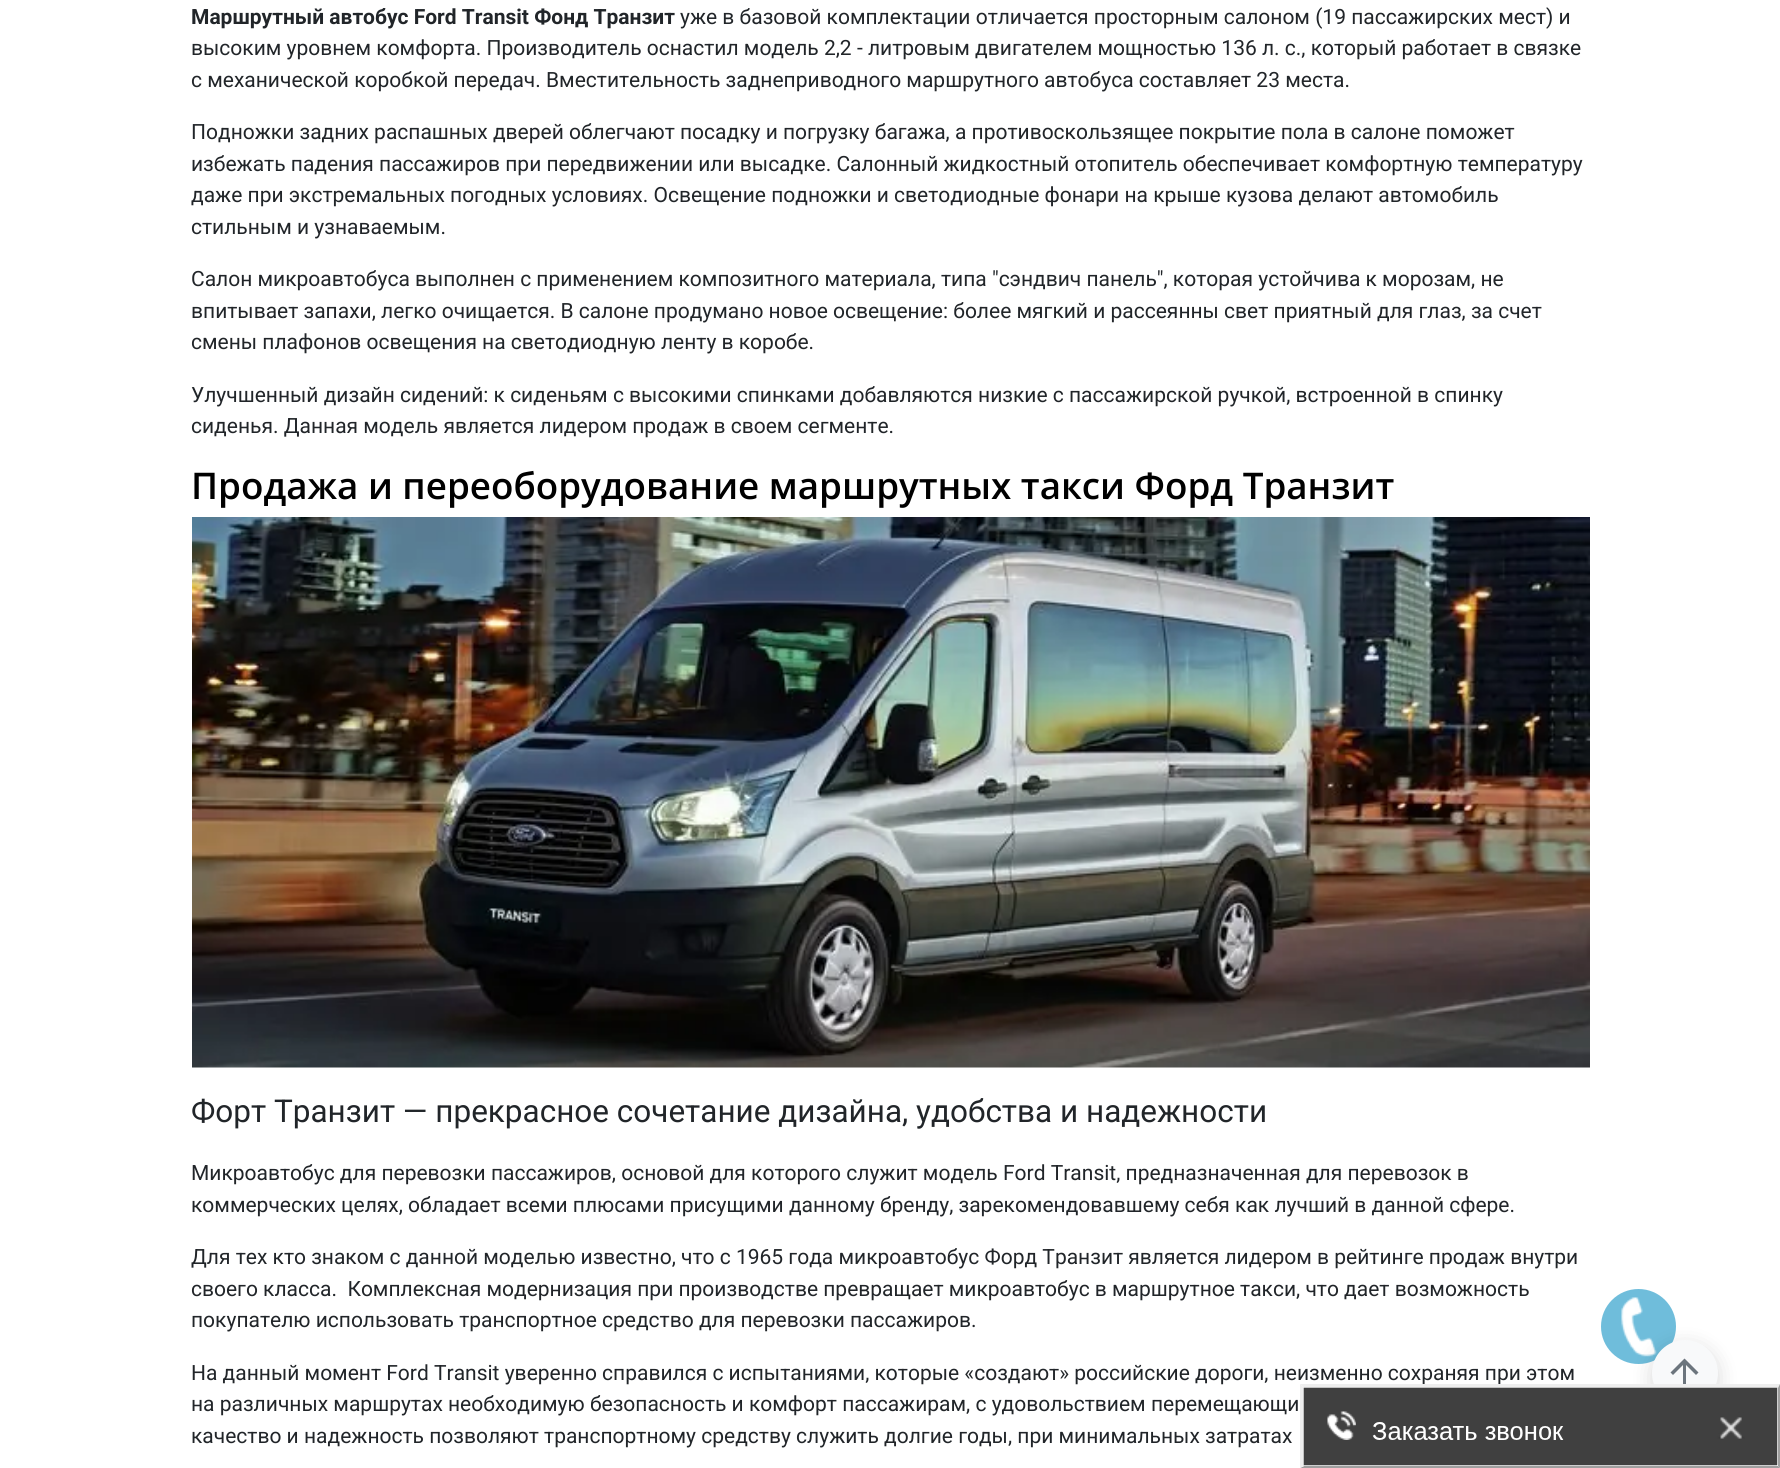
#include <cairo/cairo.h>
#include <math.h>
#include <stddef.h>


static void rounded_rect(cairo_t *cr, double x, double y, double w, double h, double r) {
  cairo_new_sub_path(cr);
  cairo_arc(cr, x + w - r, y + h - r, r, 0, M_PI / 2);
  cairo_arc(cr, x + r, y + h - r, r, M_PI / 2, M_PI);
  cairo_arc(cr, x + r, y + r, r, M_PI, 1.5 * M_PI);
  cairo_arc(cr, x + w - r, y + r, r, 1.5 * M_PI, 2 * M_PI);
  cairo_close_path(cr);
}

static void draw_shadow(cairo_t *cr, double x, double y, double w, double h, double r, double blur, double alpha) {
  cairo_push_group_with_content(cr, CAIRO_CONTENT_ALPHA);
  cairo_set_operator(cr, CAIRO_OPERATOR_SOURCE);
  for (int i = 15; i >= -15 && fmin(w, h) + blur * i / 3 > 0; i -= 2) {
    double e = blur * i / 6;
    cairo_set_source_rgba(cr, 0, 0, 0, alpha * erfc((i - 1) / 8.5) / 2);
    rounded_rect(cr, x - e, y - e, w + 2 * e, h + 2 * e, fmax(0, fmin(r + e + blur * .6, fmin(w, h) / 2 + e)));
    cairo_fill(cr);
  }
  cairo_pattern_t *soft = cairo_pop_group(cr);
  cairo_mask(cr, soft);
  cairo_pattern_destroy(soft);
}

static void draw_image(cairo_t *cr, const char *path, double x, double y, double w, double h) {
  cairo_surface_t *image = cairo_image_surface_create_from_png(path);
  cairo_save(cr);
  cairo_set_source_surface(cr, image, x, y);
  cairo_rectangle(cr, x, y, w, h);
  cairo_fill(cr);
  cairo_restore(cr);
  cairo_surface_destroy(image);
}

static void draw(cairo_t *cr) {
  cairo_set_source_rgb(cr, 1, 1, 1);
  cairo_paint(cr);
  draw_image(cr, "images/1.png", 192, 517, 1398, 551);
  cairo_set_source_rgb(cr, 111 / 255.0, 189 / 255.0, 219 / 255.0);
  cairo_arc(cr, 1638.5, 1326.5, 37.5, 0, 2 * M_PI);
  cairo_fill(cr);
  draw_image(cr, "images/2.png", 1621, 1297, 36, 60);
  cairo_set_source_rgb(cr, 0, 0, 0);
  draw_shadow(cr, 1652, 1346, 66, 66, 33, 10.5, 0.15);
  cairo_set_source_rgb(cr, 248 / 255.0, 249 / 255.0, 250 / 255.0);
  cairo_arc(cr, 1685, 1373, 32, 0, 2 * M_PI);
  cairo_fill_preserve(cr);
  cairo_stroke(cr);
  cairo_set_source_rgb(cr, 108 / 255.0, 117 / 255.0, 125 / 255.0);
  cairo_new_path(cr);
  cairo_move_to(cr, 1670.5, 1372.5);
  cairo_line_to(cr, 1673, 1375);
  cairo_line_to(cr, 1683, 1365);
  cairo_line_to(cr, 1683, 1386.5);
  cairo_line_to(cr, 1686, 1386.5);
  cairo_line_to(cr, 1686, 1365);
  cairo_line_to(cr, 1696, 1375);
  cairo_line_to(cr, 1698.5, 1372.5);
  cairo_line_to(cr, 1684.5, 1358.5);
  cairo_close_path(cr);
  cairo_fill(cr);
  cairo_select_font_face(cr, "Roboto", CAIRO_FONT_SLANT_NORMAL, CAIRO_FONT_WEIGHT_BOLD);
  cairo_set_font_size(cr, 21);
  cairo_set_source_rgb(cr, 33 / 255.0, 37 / 255.0, 41 / 255.0);
  cairo_move_to(cr, 191, 24);
  cairo_show_text(cr, "Маршрутный автобус Ford Transit Фонд Транзит");
  cairo_select_font_face(cr, "Roboto", CAIRO_FONT_SLANT_NORMAL, CAIRO_FONT_WEIGHT_NORMAL);
  cairo_move_to(cr, 680, 24);
  cairo_show_text(cr, "уже в базовой комплектации отличается просторным салоном (19 пассажирских мест) и");
  cairo_move_to(cr, 191, 55);
  cairo_show_text(cr, "высоким уровнем комфорта. Производитель оснастил модель 2,2 - литровым двигателем мощностью 136 л. с., который работает в связке");
  cairo_move_to(cr, 191, 87);
  cairo_show_text(cr, "с механической коробкой передач. Вместительность заднеприводного маршрутного автобуса составляет 23 места.");
  cairo_move_to(cr, 191, 139);
  cairo_show_text(cr, "Подножки задних распашных дверей облегчают посадку и погрузку багажа, а противоскользящее покрытие пола в салоне поможет");
  cairo_move_to(cr, 191, 171);
  cairo_show_text(cr, "избежать падения пассажиров при передвижении или высадке. Салонный жидкостный отопитель обеспечивает комфортную температуру");
  cairo_move_to(cr, 191, 202);
  cairo_show_text(cr, "даже при экстремальных погодных условиях. Освещение подножки и светодиодные фонари на крыше кузова делают автомобиль");
  cairo_move_to(cr, 191, 234);
  cairo_show_text(cr, "стильным и узнаваемым.");
  cairo_move_to(cr, 191, 286);
  cairo_show_text(cr, "Салон микроавтобуса выполнен с применением композитного материала, типа \"сэндвич панель\", которая устойчива к морозам, не");
  cairo_move_to(cr, 191, 318);
  cairo_show_text(cr, "впитывает запахи, легко очищается. В салоне продумано новое освещение: более мягкий и рассеянны свет приятный для глаз, за счет");
  cairo_move_to(cr, 191, 349);
  cairo_show_text(cr, "смены плафонов освещения на светодиодную ленту в коробе.");
  cairo_move_to(cr, 191, 402);
  cairo_show_text(cr, "Улучшенный дизайн сидений: к сиденьям с высокими спинками добавляются низкие с пассажирской ручкой, встроенной в спинку");
  cairo_move_to(cr, 191, 433);
  cairo_show_text(cr, "сиденья. Данная модель является лидером продаж в своем сегменте.");
  cairo_select_font_face(cr, "Open Sans SemiBold", CAIRO_FONT_SLANT_NORMAL, CAIRO_FONT_WEIGHT_NORMAL);
  cairo_set_font_size(cr, 36.75);
  cairo_set_source_rgb(cr, 0, 0, 0);
  cairo_move_to(cr, 191, 499);
  cairo_show_text(cr, "Продажа и переоборудование маршрутных такси Форд Транзит");
  cairo_select_font_face(cr, "Roboto", CAIRO_FONT_SLANT_NORMAL, CAIRO_FONT_WEIGHT_NORMAL);
  cairo_set_font_size(cr, 31.5);
  cairo_set_source_rgb(cr, 33 / 255.0, 37 / 255.0, 41 / 255.0);
  cairo_move_to(cr, 191, 1122);
  cairo_show_text(cr, "Форт Транзит — прекрасное сочетание дизайна, удобства и надежности");
  cairo_set_font_size(cr, 21);
  cairo_move_to(cr, 191, 1180);
  cairo_show_text(cr, "Микроавтобус для перевозки пассажиров, основой для которого служит модель Ford Transit, предназначенная для перевозок в");
  cairo_move_to(cr, 191, 1212);
  cairo_show_text(cr, "коммерческих целях, обладает всеми плюсами присущими данному бренду, зарекомендовавшему себя как лучший в данной сфере.");
  cairo_move_to(cr, 191, 1264);
  cairo_show_text(cr, "Для тех кто знаком с данной моделью известно, что с 1965 года микроавтобус Форд Транзит является лидером в рейтинге продаж внутри");
  cairo_move_to(cr, 191, 1296);
  cairo_show_text(cr, "своего класса.  Комплексная модернизация при производстве превращает микроавтобус в маршрутное такси, что дает возможность");
  cairo_move_to(cr, 191, 1327);
  cairo_show_text(cr, "покупателю использовать транспортное средство для перевозки пассажиров.");
  cairo_move_to(cr, 191, 1380);
  cairo_show_text(cr, "На данный момент Ford Transit уверенно справился с испытаниями, которые «создают» российские дороги, неизменно сохраняя при этом");
  cairo_move_to(cr, 191, 1411);
  cairo_show_text(cr, "на различных маршрутах необходимую безопасность и комфорт пассажирам, с удовольствием перемещающи");
  cairo_move_to(cr, 191, 1443);
  cairo_show_text(cr, "качество и надежность позволяют транспортному средству служить долгие годы, при минимальных затратах");
  cairo_set_source_rgb(cr, 238 / 255.0, 238 / 255.0, 238 / 255.0);
  cairo_new_path(cr);
  cairo_move_to(cr, 1300, 1384);
  cairo_line_to(cr, 1780, 1384);
  cairo_line_to(cr, 1778, 1388);
  cairo_line_to(cr, 1304, 1388);
  cairo_close_path(cr);
  cairo_fill(cr);
  cairo_set_source_rgb(cr, 159 / 255.0, 159 / 255.0, 159 / 255.0);
  cairo_new_path(cr);
  cairo_move_to(cr, 1780, 1384);
  cairo_line_to(cr, 1780, 1468);
  cairo_line_to(cr, 1778, 1466);
  cairo_line_to(cr, 1778, 1388);
  cairo_close_path(cr);
  cairo_fill(cr);
  cairo_new_path(cr);
  cairo_move_to(cr, 1780, 1468);
  cairo_line_to(cr, 1300, 1468);
  cairo_line_to(cr, 1304, 1466);
  cairo_line_to(cr, 1778, 1466);
  cairo_close_path(cr);
  cairo_fill(cr);
  cairo_set_source_rgb(cr, 238 / 255.0, 238 / 255.0, 238 / 255.0);
  cairo_new_path(cr);
  cairo_move_to(cr, 1300, 1468);
  cairo_line_to(cr, 1300, 1384);
  cairo_line_to(cr, 1304, 1388);
  cairo_line_to(cr, 1304, 1466);
  cairo_close_path(cr);
  cairo_fill(cr);
  draw_image(cr, "images/3.png", 1303, 1387, 475, 79);
}

int main(void) {
  cairo_surface_t *surface = cairo_image_surface_create(CAIRO_FORMAT_RGB24, 1780, 1468);
  cairo_t *cr = cairo_create(surface);
  cairo_font_options_t *options = cairo_font_options_create();
  cairo_font_options_set_hint_metrics(options, CAIRO_HINT_METRICS_OFF);
  cairo_font_options_set_hint_style(options, CAIRO_HINT_STYLE_NONE);
  cairo_set_font_options(cr, options);
  cairo_set_miter_limit(cr, 4);
  draw(cr);
  cairo_surface_write_to_png(surface, "out.png");
  cairo_font_options_destroy(options);
  cairo_destroy(cr);
  cairo_surface_destroy(surface);
  return 0;
}
